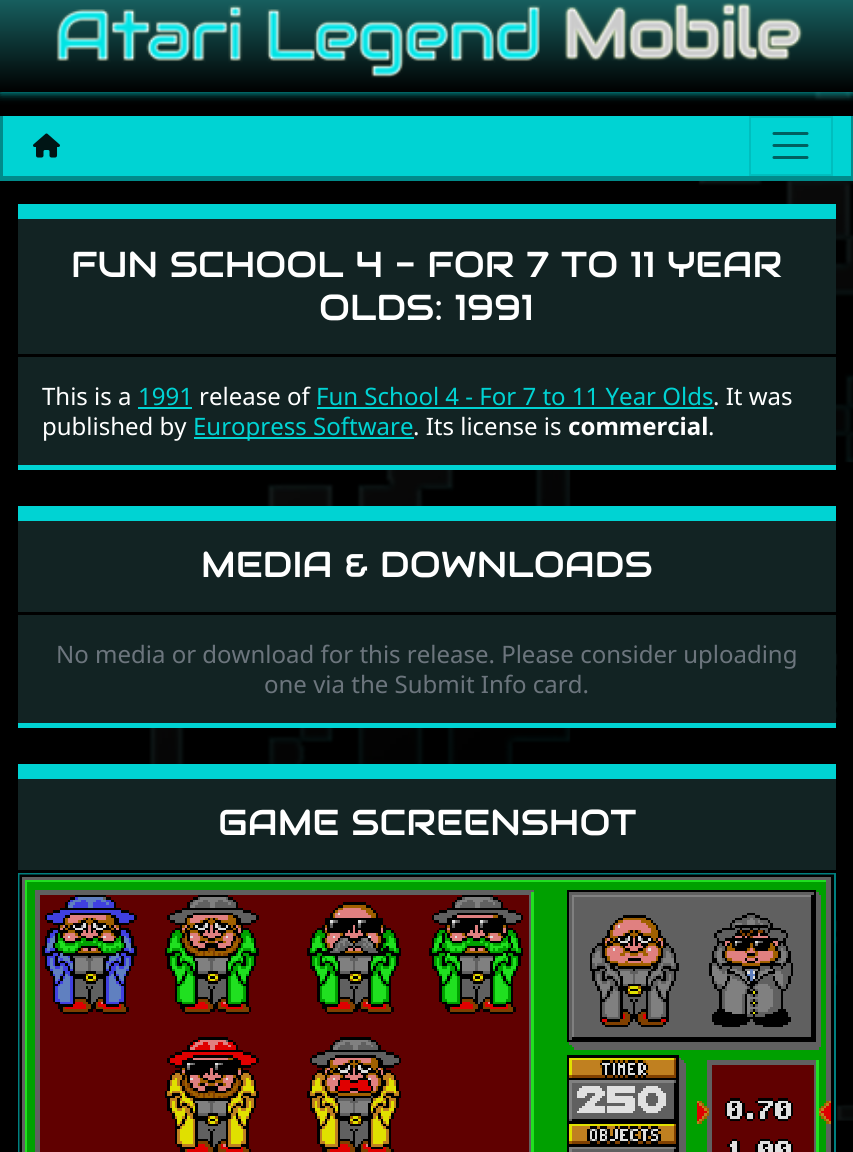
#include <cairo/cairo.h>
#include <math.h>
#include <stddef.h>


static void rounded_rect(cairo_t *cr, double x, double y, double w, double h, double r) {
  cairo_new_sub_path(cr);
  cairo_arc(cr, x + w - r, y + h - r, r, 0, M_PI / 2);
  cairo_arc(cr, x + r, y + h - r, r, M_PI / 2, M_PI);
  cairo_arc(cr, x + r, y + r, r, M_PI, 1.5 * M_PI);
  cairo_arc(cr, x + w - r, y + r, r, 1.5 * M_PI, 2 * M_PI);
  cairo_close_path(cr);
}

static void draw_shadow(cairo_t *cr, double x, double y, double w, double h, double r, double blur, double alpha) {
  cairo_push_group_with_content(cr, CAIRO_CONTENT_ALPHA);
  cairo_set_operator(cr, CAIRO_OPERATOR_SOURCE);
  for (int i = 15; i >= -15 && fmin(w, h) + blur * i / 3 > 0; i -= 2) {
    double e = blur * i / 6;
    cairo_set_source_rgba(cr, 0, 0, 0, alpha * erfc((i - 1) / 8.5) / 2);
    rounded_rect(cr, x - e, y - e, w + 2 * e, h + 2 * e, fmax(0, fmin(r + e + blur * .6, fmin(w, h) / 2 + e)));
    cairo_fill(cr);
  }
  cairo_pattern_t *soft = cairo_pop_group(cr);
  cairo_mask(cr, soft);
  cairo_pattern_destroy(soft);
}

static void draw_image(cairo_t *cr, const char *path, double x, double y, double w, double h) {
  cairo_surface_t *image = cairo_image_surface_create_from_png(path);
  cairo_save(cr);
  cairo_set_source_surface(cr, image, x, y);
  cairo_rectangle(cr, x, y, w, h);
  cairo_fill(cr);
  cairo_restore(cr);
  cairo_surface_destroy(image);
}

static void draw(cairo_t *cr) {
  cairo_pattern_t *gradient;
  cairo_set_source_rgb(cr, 0, 0, 0);
  cairo_paint(cr);
  draw_image(cr, "images/1.png", 149, 92, 704, 1029);
  cairo_set_source_rgb(cr, 0, 211 / 255.0, 211 / 255.0);
  draw_shadow(cr, 0, 0, 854, 92, 0, 5, 1);
  gradient = cairo_pattern_create_linear(427, 0, 427, 92);
  cairo_pattern_add_color_stop_rgba(gradient, 0, 23 / 255.0, 95 / 255.0, 95 / 255.0, 1);
  cairo_pattern_add_color_stop_rgba(gradient, 1, 0, 0, 0, 1);
  cairo_set_source(cr, gradient);
  cairo_pattern_destroy(gradient);
  cairo_rectangle(cr, 0, 0, 853, 92);
  cairo_fill(cr);
  draw_image(cr, "images/2.png", 56, 2, 747, 76);
  cairo_set_source_rgb(cr, 0, 211 / 255.0, 211 / 255.0);
  cairo_rectangle(cr, 3, 116, 848, 60);
  cairo_fill(cr);
  cairo_set_source_rgb(cr, 0, 139 / 255.0, 139 / 255.0);
  cairo_rectangle(cr, 851, 116, 2, 64);
  cairo_fill(cr);
  cairo_rectangle(cr, 0, 176, 853, 5);
  cairo_fill(cr);
  cairo_rectangle(cr, 0, 116, 3, 64);
  cairo_fill(cr);
  draw_image(cr, "images/3.png", 33, 133, 27, 25);
  cairo_rectangle(cr, 750, 117, 82, 58);
  cairo_set_source_rgb(cr, 0, 190 / 255.0, 190 / 255.0);
  cairo_stroke(cr);
  cairo_new_path(cr);
  cairo_move_to(cr, 774, 133.5);
  cairo_line_to(cr, 807, 133.5);
  cairo_move_to(cr, 774, 145.5);
  cairo_line_to(cr, 807, 145.5);
  cairo_move_to(cr, 774, 157.5);
  cairo_line_to(cr, 807, 157.5);
  cairo_set_source_rgb(cr, 0, 95 / 255.0, 95 / 255.0);
  cairo_set_line_width(cr, 3);
  cairo_set_line_cap(cr, CAIRO_LINE_CAP_ROUND);
  cairo_stroke(cr);
  cairo_set_source_rgb(cr, 18 / 255.0, 35 / 255.0, 35 / 255.0);
  cairo_rectangle(cr, 18, 219, 818, 246);
  cairo_fill(cr);
  cairo_set_source_rgb(cr, 0, 211 / 255.0, 211 / 255.0);
  cairo_rectangle(cr, 18, 204, 818, 15);
  cairo_fill(cr);
  cairo_rectangle(cr, 18, 465, 818, 5);
  cairo_fill(cr);
  cairo_set_source_rgb(cr, 0, 0, 0);
  cairo_rectangle(cr, 18, 354, 818, 3);
  cairo_fill(cr);
  cairo_set_source_rgb(cr, 0, 211 / 255.0, 211 / 255.0);
  cairo_rectangle(cr, 138, 407, 54, 2);
  cairo_fill(cr);
  cairo_rectangle(cr, 317, 407, 397, 2);
  cairo_fill(cr);
  cairo_rectangle(cr, 194, 437, 220, 2);
  cairo_fill(cr);
  cairo_set_source_rgb(cr, 18 / 255.0, 35 / 255.0, 35 / 255.0);
  cairo_rectangle(cr, 18, 521, 818, 202);
  cairo_fill(cr);
  cairo_set_source_rgb(cr, 0, 211 / 255.0, 211 / 255.0);
  cairo_rectangle(cr, 18, 506, 818, 15);
  cairo_fill(cr);
  cairo_rectangle(cr, 18, 723, 818, 5);
  cairo_fill(cr);
  cairo_set_source_rgb(cr, 0, 0, 0);
  cairo_rectangle(cr, 18, 612, 818, 3);
  cairo_fill(cr);
  cairo_set_source_rgb(cr, 18 / 255.0, 35 / 255.0, 35 / 255.0);
  cairo_rectangle(cr, 18, 779, 818, 91);
  cairo_fill(cr);
  cairo_set_source_rgb(cr, 0, 211 / 255.0, 211 / 255.0);
  cairo_rectangle(cr, 18, 764, 818, 15);
  cairo_fill(cr);
  cairo_rectangle(cr, 19, 874, 816, 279);
  cairo_set_source_rgb(cr, 0, 127 / 255.0, 127 / 255.0);
  cairo_set_line_width(cr, 2);
  cairo_set_line_cap(cr, CAIRO_LINE_CAP_BUTT);
  cairo_stroke(cr);
  draw_image(cr, "images/4.png", 19, 874, 815, 278);
  cairo_select_font_face(cr, "Audiowide", CAIRO_FONT_SLANT_NORMAL, CAIRO_FONT_WEIGHT_NORMAL);
  cairo_set_font_size(cr, 36);
  cairo_set_source_rgb(cr, 1, 1, 1);
  cairo_move_to(cr, 71, 277);
  cairo_show_text(cr, "FUN SCHOOL 4 - FOR 7 TO 11 YEAR");
  cairo_move_to(cr, 319, 320);
  cairo_show_text(cr, "OLDS: 1991");
  cairo_select_font_face(cr, "Noto Sans", CAIRO_FONT_SLANT_NORMAL, CAIRO_FONT_WEIGHT_NORMAL);
  cairo_set_font_size(cr, 24);
  cairo_move_to(cr, 42, 405);
  cairo_show_text(cr, "This is a");
  cairo_set_source_rgb(cr, 0, 211 / 255.0, 211 / 255.0);
  cairo_move_to(cr, 138, 405);
  cairo_show_text(cr, "1991");
  cairo_set_source_rgb(cr, 1, 1, 1);
  cairo_move_to(cr, 199, 405);
  cairo_show_text(cr, "release of");
  cairo_set_source_rgb(cr, 0, 211 / 255.0, 211 / 255.0);
  cairo_move_to(cr, 316, 405);
  cairo_show_text(cr, "Fun School 4 - For 7 to 11 Year Olds");
  cairo_set_source_rgb(cr, 1, 1, 1);
  cairo_move_to(cr, 713, 405);
  cairo_show_text(cr, ". It was");
  cairo_move_to(cr, 42, 435);
  cairo_show_text(cr, "published by");
  cairo_set_source_rgb(cr, 0, 211 / 255.0, 211 / 255.0);
  cairo_move_to(cr, 193, 435);
  cairo_show_text(cr, "Europress Software");
  cairo_set_source_rgb(cr, 1, 1, 1);
  cairo_move_to(cr, 413, 435);
  cairo_show_text(cr, ". Its license is");
  cairo_select_font_face(cr, "Noto Sans", CAIRO_FONT_SLANT_NORMAL, CAIRO_FONT_WEIGHT_BOLD);
  cairo_move_to(cr, 568, 435);
  cairo_show_text(cr, "commercial");
  cairo_select_font_face(cr, "Noto Sans", CAIRO_FONT_SLANT_NORMAL, CAIRO_FONT_WEIGHT_NORMAL);
  cairo_move_to(cr, 708, 435);
  cairo_show_text(cr, ".");
  cairo_select_font_face(cr, "Audiowide", CAIRO_FONT_SLANT_NORMAL, CAIRO_FONT_WEIGHT_NORMAL);
  cairo_set_font_size(cr, 36);
  cairo_move_to(cr, 201, 577);
  cairo_show_text(cr, "MEDIA & DOWNLOADS");
  cairo_select_font_face(cr, "Noto Sans", CAIRO_FONT_SLANT_NORMAL, CAIRO_FONT_WEIGHT_NORMAL);
  cairo_set_font_size(cr, 24);
  cairo_set_source_rgb(cr, 108 / 255.0, 117 / 255.0, 125 / 255.0);
  cairo_move_to(cr, 56, 663);
  cairo_show_text(cr, "No media or download for this release. Please consider uploading");
  cairo_move_to(cr, 264, 693);
  cairo_show_text(cr, "one via the Submit Info card.");
  cairo_select_font_face(cr, "Audiowide", CAIRO_FONT_SLANT_NORMAL, CAIRO_FONT_WEIGHT_NORMAL);
  cairo_set_font_size(cr, 36);
  cairo_set_source_rgb(cr, 1, 1, 1);
  cairo_move_to(cr, 218, 835);
  cairo_show_text(cr, "GAME SCREENSHOT");
}

int main(void) {
  cairo_surface_t *surface = cairo_image_surface_create(CAIRO_FORMAT_RGB24, 853, 1152);
  cairo_t *cr = cairo_create(surface);
  cairo_font_options_t *options = cairo_font_options_create();
  cairo_font_options_set_hint_metrics(options, CAIRO_HINT_METRICS_OFF);
  cairo_font_options_set_hint_style(options, CAIRO_HINT_STYLE_NONE);
  cairo_set_font_options(cr, options);
  cairo_set_miter_limit(cr, 4);
  draw(cr);
  cairo_surface_write_to_png(surface, "out.png");
  cairo_font_options_destroy(options);
  cairo_destroy(cr);
  cairo_surface_destroy(surface);
  return 0;
}
